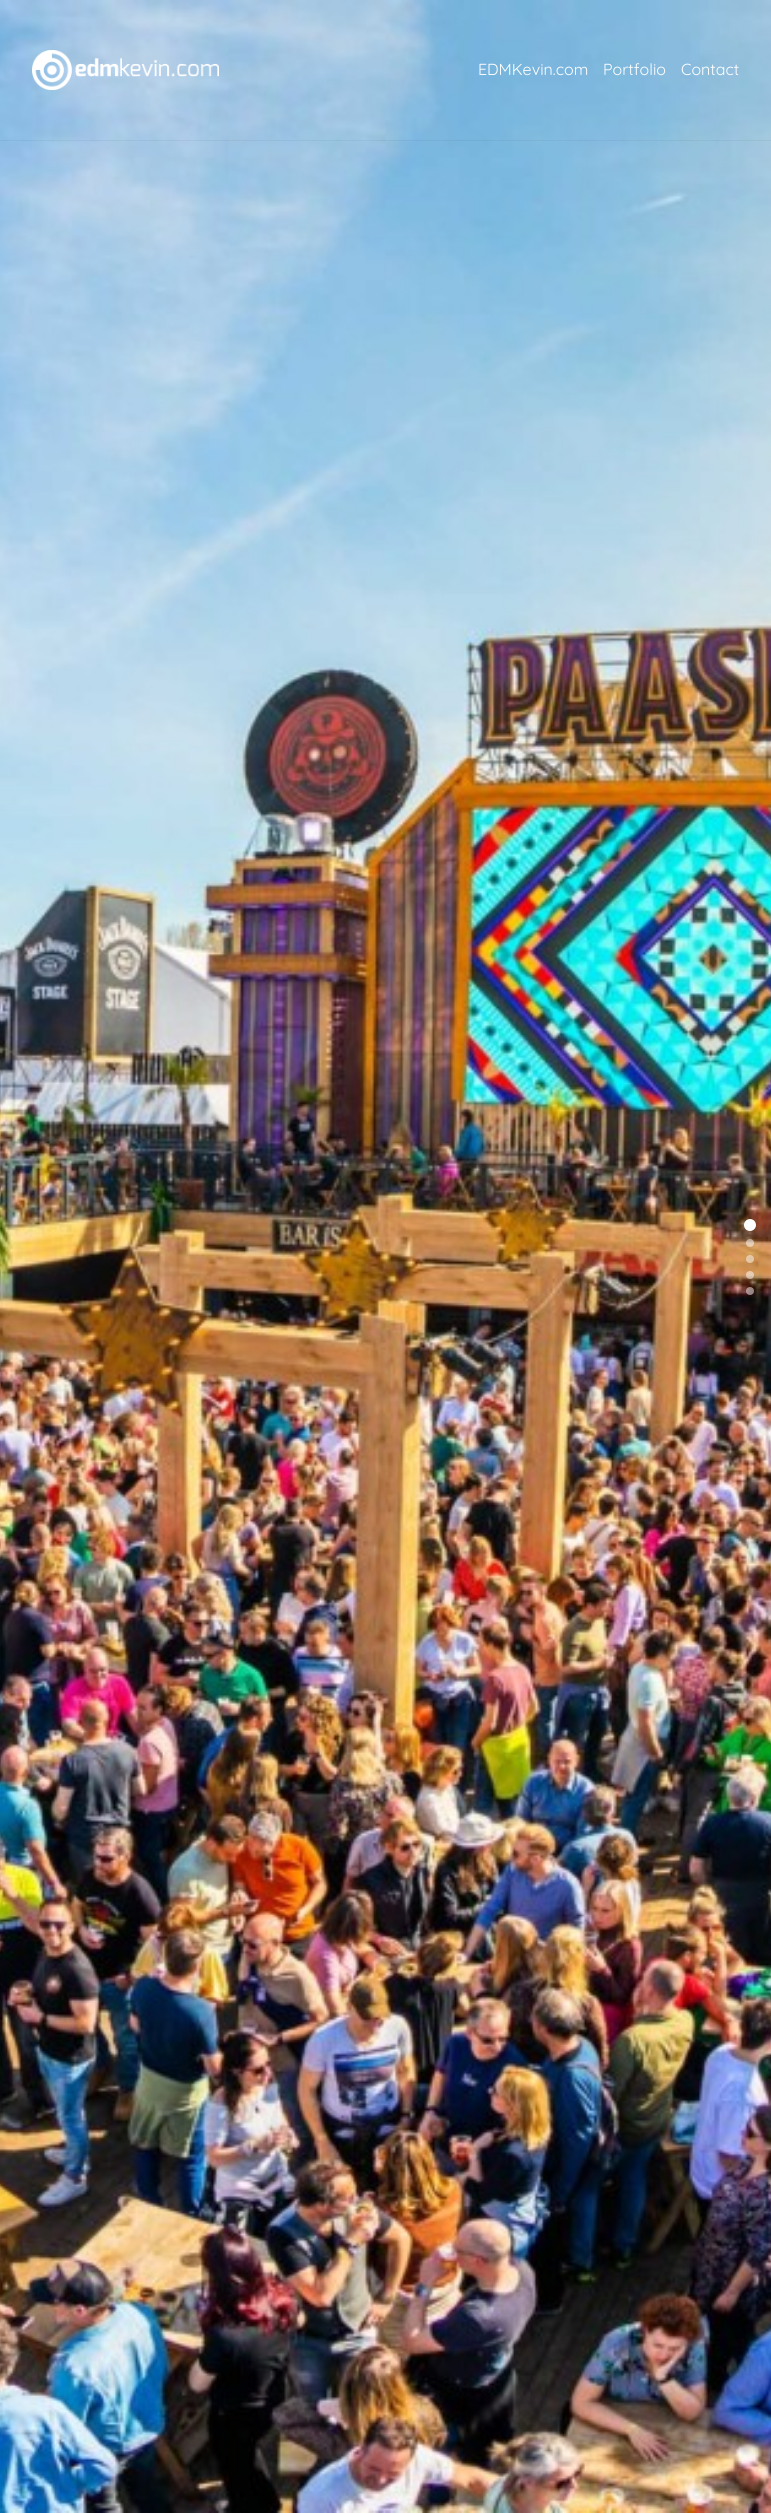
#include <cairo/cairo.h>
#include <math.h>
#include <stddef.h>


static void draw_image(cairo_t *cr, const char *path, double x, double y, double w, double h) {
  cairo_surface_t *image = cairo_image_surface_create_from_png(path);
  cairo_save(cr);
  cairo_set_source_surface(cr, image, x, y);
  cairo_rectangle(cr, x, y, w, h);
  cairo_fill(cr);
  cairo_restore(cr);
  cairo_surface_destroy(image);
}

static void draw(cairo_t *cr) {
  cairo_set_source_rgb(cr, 1, 1, 1);
  cairo_paint(cr);
  draw_image(cr, "images/1.png", 0, 0, 771, 2513);
  cairo_set_source_rgb(cr, 1, 1, 1);
  cairo_arc(cr, 750, 1225, 6, 0, 2 * M_PI);
  cairo_fill(cr);
  cairo_set_source_rgba(cr, 1, 1, 1, 0.5);
  cairo_arc(cr, 750, 1243, 4, 0, 2 * M_PI);
  cairo_fill(cr);
  cairo_arc(cr, 750, 1259, 4, 0, 2 * M_PI);
  cairo_fill(cr);
  cairo_arc(cr, 750, 1275, 4, 0, 2 * M_PI);
  cairo_fill(cr);
  cairo_arc(cr, 750, 1291, 4, 0, 2 * M_PI);
  cairo_fill(cr);
  cairo_set_source_rgba(cr, 0, 0, 0, 0.05);
  cairo_rectangle(cr, 0, 140, 771, 1);
  cairo_fill(cr);
  draw_image(cr, "images/2.png", 32, 50, 187, 40);
  cairo_select_font_face(cr, "Quicksand", CAIRO_FONT_SLANT_NORMAL, CAIRO_FONT_WEIGHT_NORMAL);
  cairo_set_font_size(cr, 16);
  cairo_set_source_rgb(cr, 1, 1, 1);
  cairo_move_to(cr, 478, 75);
  cairo_show_text(cr, "EDMKevin.com");
  cairo_move_to(cr, 603, 75);
  cairo_show_text(cr, "Portfolio");
  cairo_move_to(cr, 681, 75);
  cairo_show_text(cr, "Contact");
}

int main(void) {
  cairo_surface_t *surface = cairo_image_surface_create(CAIRO_FORMAT_RGB24, 771, 2513);
  cairo_t *cr = cairo_create(surface);
  cairo_font_options_t *options = cairo_font_options_create();
  cairo_font_options_set_hint_metrics(options, CAIRO_HINT_METRICS_OFF);
  cairo_font_options_set_hint_style(options, CAIRO_HINT_STYLE_NONE);
  cairo_set_font_options(cr, options);
  cairo_set_miter_limit(cr, 4);
  draw(cr);
  cairo_surface_write_to_png(surface, "out.png");
  cairo_font_options_destroy(options);
  cairo_destroy(cr);
  cairo_surface_destroy(surface);
  return 0;
}
